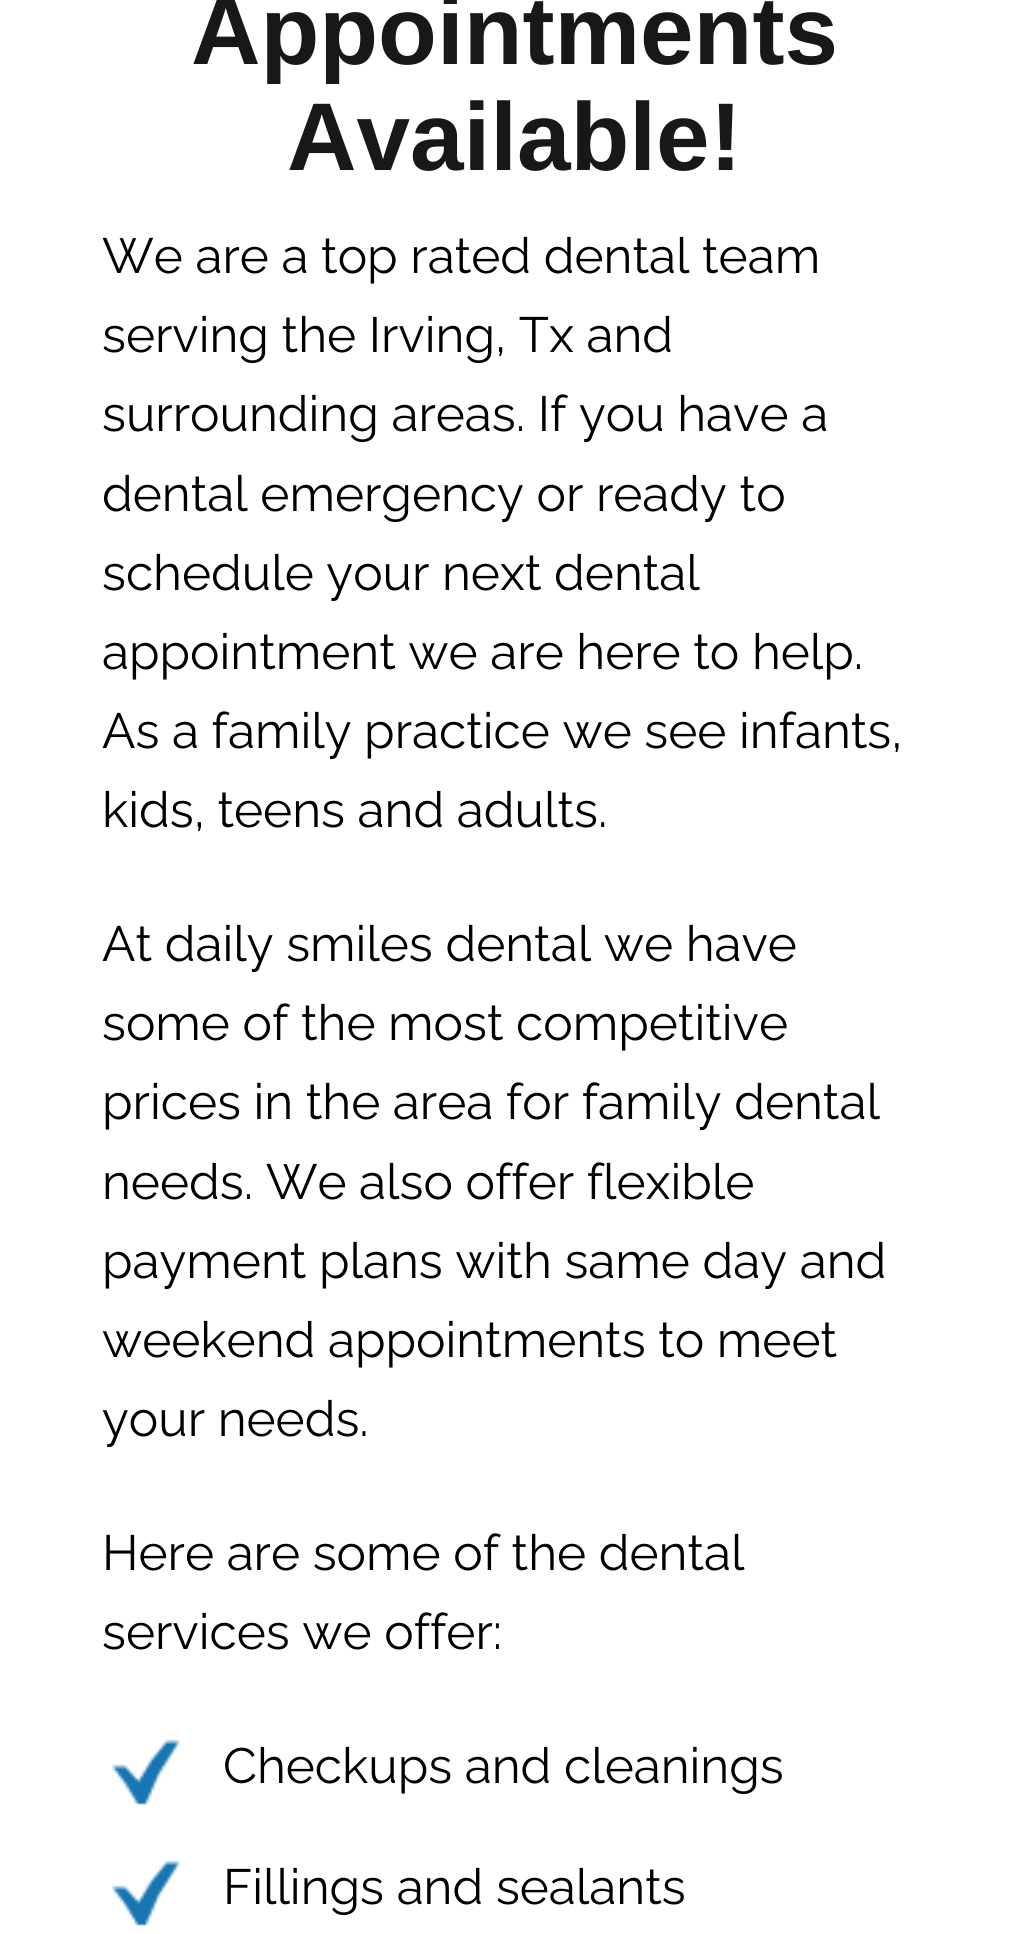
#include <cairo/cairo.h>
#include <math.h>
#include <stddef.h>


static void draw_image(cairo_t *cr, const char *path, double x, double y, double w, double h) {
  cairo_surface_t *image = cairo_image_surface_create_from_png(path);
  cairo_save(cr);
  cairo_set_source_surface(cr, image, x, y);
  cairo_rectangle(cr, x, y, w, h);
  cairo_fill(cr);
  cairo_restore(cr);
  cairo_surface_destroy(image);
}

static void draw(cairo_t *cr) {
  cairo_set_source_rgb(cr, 1, 1, 1);
  cairo_paint(cr);
  draw_image(cr, "images/1.png", 112, 1739, 68, 66);
  draw_image(cr, "images/1.png", 112, 1860, 68, 66);
  cairo_select_font_face(cr, "Liberation Sans", CAIRO_FONT_SLANT_NORMAL, CAIRO_FONT_WEIGHT_BOLD);
  cairo_set_font_size(cr, 96.25);
  cairo_set_source_rgb(cr, 24 / 255.0, 24 / 255.0, 24 / 255.0);
  cairo_move_to(cr, 191, 64);
  cairo_show_text(cr, "Appointments");
  cairo_move_to(cr, 287, 170);
  cairo_show_text(cr, "Available!");
  cairo_select_font_face(cr, "Raleway", CAIRO_FONT_SLANT_NORMAL, CAIRO_FONT_WEIGHT_NORMAL);
  cairo_set_font_size(cr, 49.5);
  cairo_set_source_rgb(cr, 0, 0, 0);
  cairo_move_to(cr, 102, 273);
  cairo_show_text(cr, "We are a top rated dental team");
  cairo_move_to(cr, 102, 352);
  cairo_show_text(cr, "serving the Irving, Tx and");
  cairo_move_to(cr, 102, 431);
  cairo_show_text(cr, "surrounding areas. If you have a");
  cairo_move_to(cr, 102, 511);
  cairo_show_text(cr, "dental emergency or ready to");
  cairo_move_to(cr, 102, 590);
  cairo_show_text(cr, "schedule your next dental");
  cairo_move_to(cr, 102, 669);
  cairo_show_text(cr, "appointment we are here to help.");
  cairo_move_to(cr, 102, 748);
  cairo_show_text(cr, "As a family practice we see infants,");
  cairo_move_to(cr, 102, 827);
  cairo_show_text(cr, "kids, teens and adults.");
  cairo_move_to(cr, 102, 961);
  cairo_show_text(cr, "At daily smiles dental we have");
  cairo_move_to(cr, 102, 1040);
  cairo_show_text(cr, "some of the most competitive");
  cairo_move_to(cr, 102, 1119);
  cairo_show_text(cr, "prices in the area for family dental");
  cairo_move_to(cr, 102, 1199);
  cairo_show_text(cr, "needs. We also offer flexible");
  cairo_move_to(cr, 102, 1278);
  cairo_show_text(cr, "payment plans with same day and");
  cairo_move_to(cr, 102, 1357);
  cairo_show_text(cr, "weekend appointments to meet");
  cairo_move_to(cr, 102, 1436);
  cairo_show_text(cr, "your needs.");
  cairo_move_to(cr, 102, 1570);
  cairo_show_text(cr, "Here are some of the dental");
  cairo_move_to(cr, 102, 1649);
  cairo_show_text(cr, "services we offer:");
  cairo_move_to(cr, 223, 1783);
  cairo_show_text(cr, "Checkups and cleanings");
  cairo_move_to(cr, 223, 1904);
  cairo_show_text(cr, "Fillings and sealants");
}

int main(void) {
  cairo_surface_t *surface = cairo_image_surface_create(CAIRO_FORMAT_RGB24, 1028, 1934);
  cairo_t *cr = cairo_create(surface);
  cairo_font_options_t *options = cairo_font_options_create();
  cairo_font_options_set_hint_metrics(options, CAIRO_HINT_METRICS_OFF);
  cairo_font_options_set_hint_style(options, CAIRO_HINT_STYLE_NONE);
  cairo_set_font_options(cr, options);
  cairo_set_miter_limit(cr, 4);
  draw(cr);
  cairo_surface_write_to_png(surface, "out.png");
  cairo_font_options_destroy(options);
  cairo_destroy(cr);
  cairo_surface_destroy(surface);
  return 0;
}
